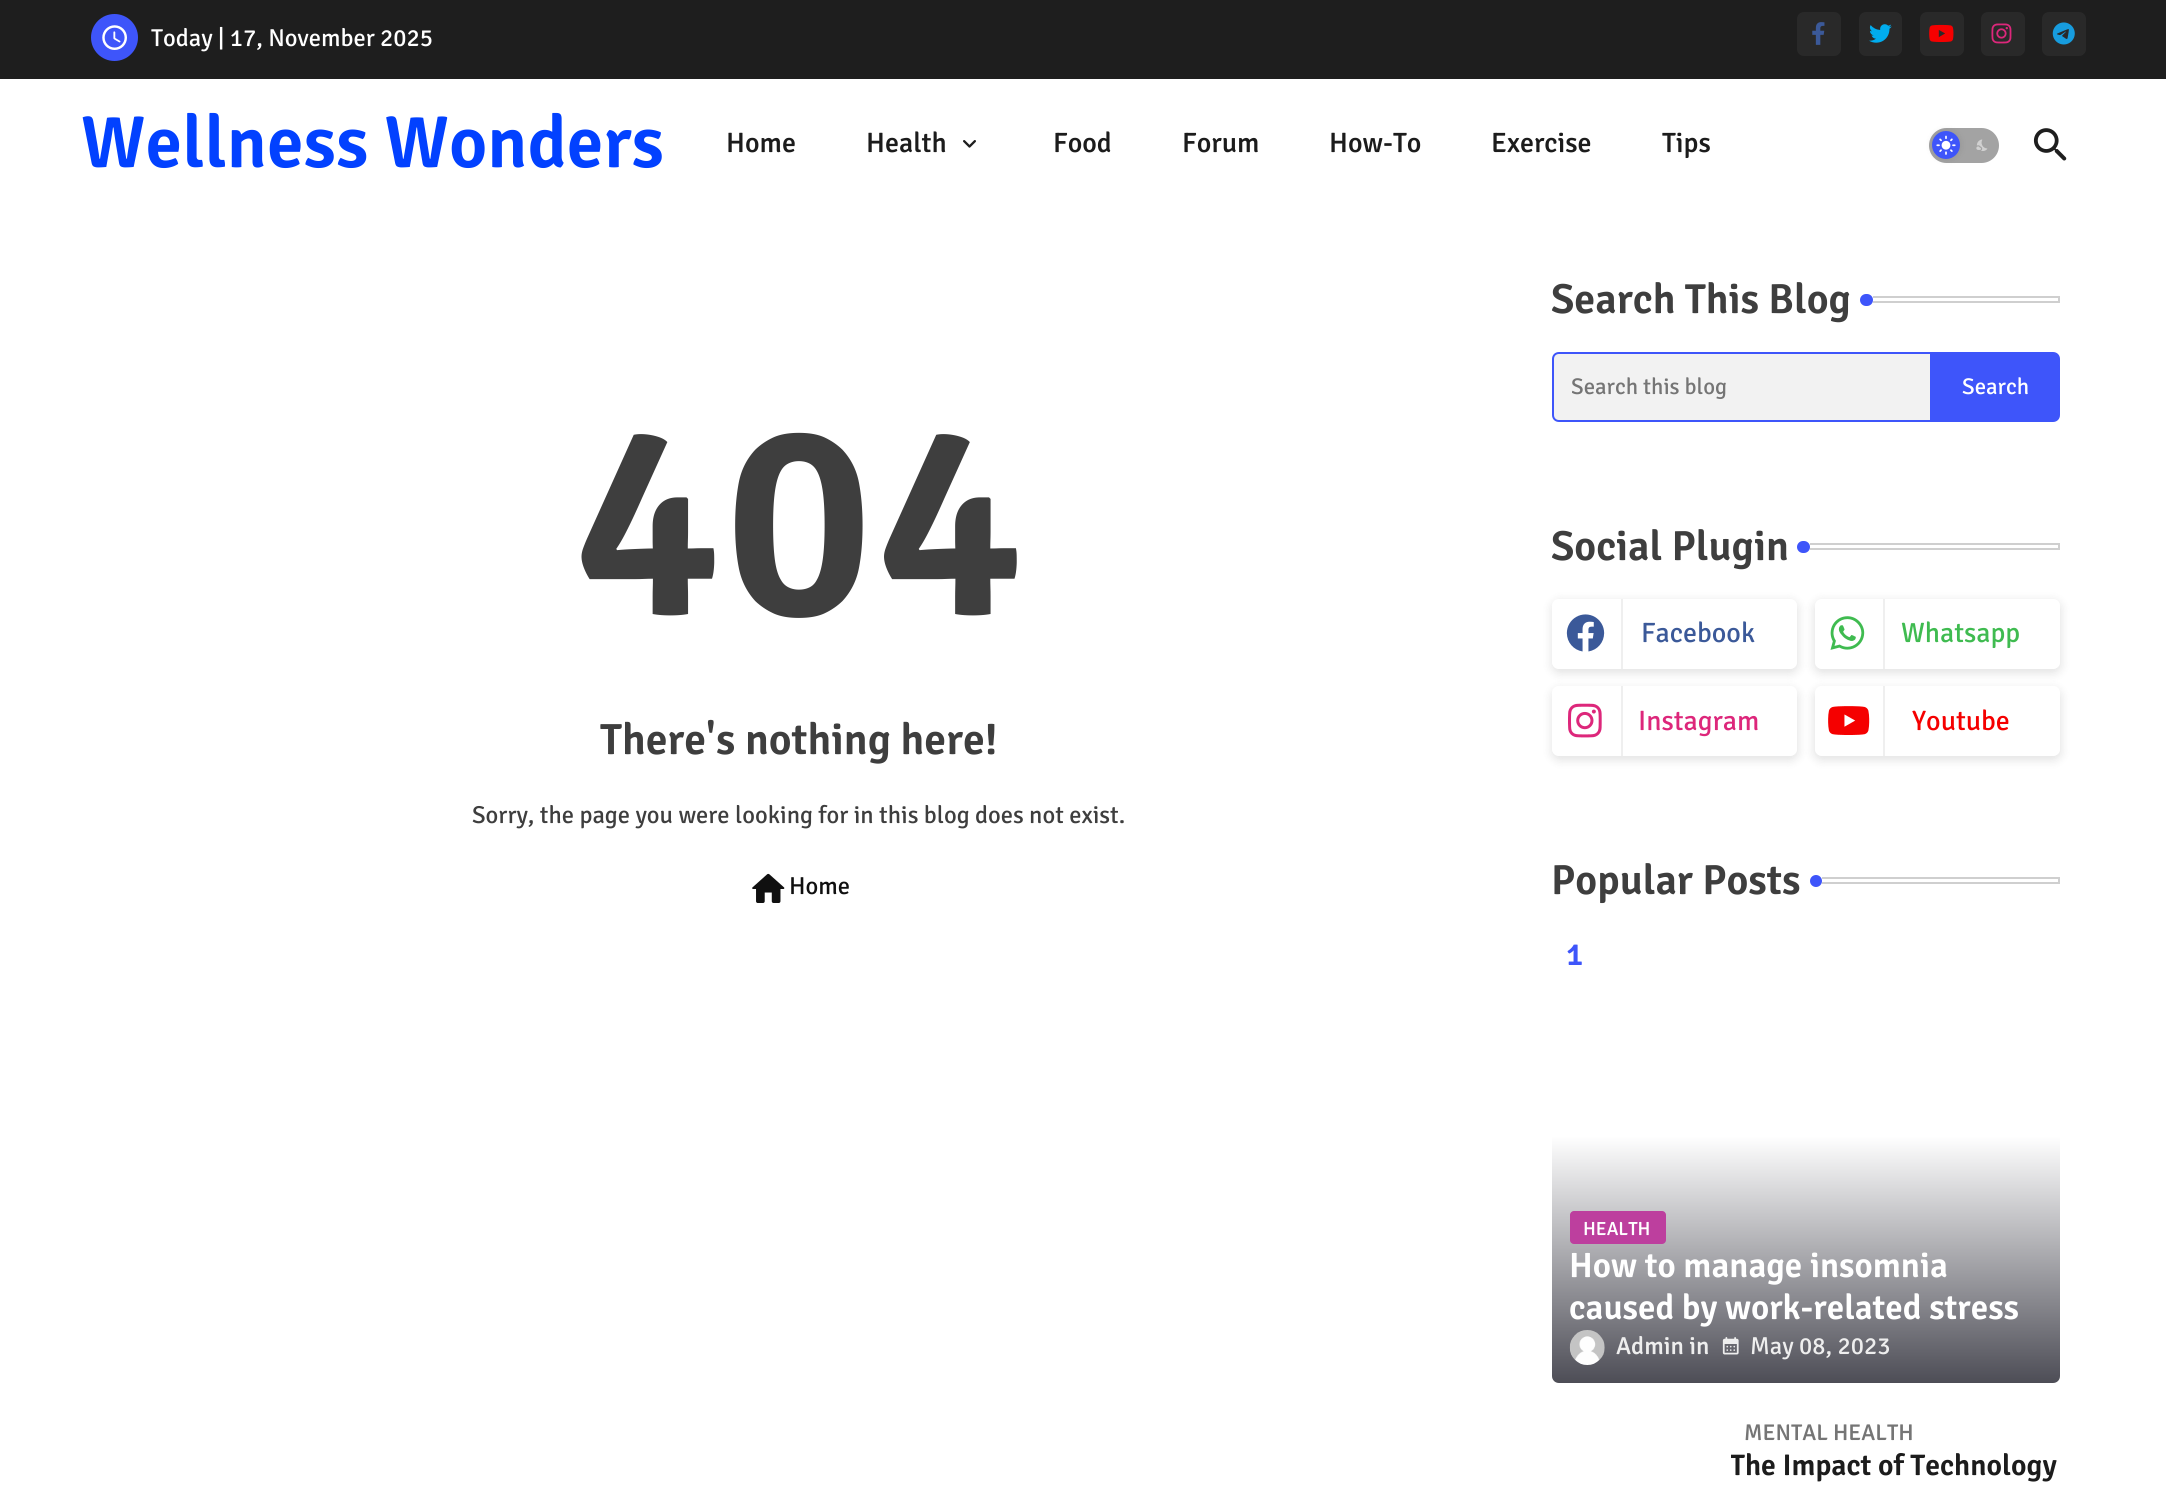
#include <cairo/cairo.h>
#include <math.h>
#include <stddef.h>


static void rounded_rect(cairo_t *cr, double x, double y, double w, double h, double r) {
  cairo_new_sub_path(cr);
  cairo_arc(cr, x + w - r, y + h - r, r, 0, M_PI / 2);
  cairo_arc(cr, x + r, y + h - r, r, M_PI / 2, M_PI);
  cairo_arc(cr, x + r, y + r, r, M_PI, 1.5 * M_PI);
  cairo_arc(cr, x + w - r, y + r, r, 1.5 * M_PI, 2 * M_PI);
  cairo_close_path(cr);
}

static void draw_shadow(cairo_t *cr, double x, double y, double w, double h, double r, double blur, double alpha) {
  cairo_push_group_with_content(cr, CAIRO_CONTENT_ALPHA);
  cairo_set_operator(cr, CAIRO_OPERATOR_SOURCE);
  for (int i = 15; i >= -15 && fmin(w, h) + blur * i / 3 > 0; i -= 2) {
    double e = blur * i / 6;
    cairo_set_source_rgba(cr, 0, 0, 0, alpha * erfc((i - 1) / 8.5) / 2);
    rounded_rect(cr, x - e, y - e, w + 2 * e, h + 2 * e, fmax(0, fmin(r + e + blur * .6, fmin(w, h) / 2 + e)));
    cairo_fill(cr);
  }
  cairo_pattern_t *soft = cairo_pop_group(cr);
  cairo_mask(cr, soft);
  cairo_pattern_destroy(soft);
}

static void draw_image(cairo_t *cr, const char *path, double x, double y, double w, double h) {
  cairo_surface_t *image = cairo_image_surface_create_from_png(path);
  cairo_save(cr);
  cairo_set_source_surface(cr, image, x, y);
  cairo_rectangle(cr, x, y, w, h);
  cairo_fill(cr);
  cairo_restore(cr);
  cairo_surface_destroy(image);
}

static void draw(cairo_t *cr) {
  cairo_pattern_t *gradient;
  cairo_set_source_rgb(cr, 1, 1, 1);
  cairo_paint(cr);
  cairo_set_source_rgb(cr, 30 / 255.0, 30 / 255.0, 30 / 255.0);
  cairo_rectangle(cr, 0, 0, 2166, 79);
  cairo_fill(cr);
  cairo_set_source_rgb(cr, 62 / 255.0, 85 / 255.0, 250 / 255.0);
  cairo_arc(cr, 114.5, 37.5, 23.5, 0, 2 * M_PI);
  cairo_fill(cr);
  draw_image(cr, "images/1.png", 102, 25, 25, 25);
  cairo_set_source_rgb(cr, 41 / 255.0, 41 / 255.0, 41 / 255.0);
  rounded_rect(cr, 1797, 12, 44, 44, 7);
  cairo_fill(cr);
  draw_image(cr, "images/2.png", 1812, 22, 13, 23);
  rounded_rect(cr, 1859, 12, 43, 44, 7);
  cairo_fill(cr);
  draw_image(cr, "images/3.png", 1869, 24, 23, 19);
  rounded_rect(cr, 1920, 12, 44, 44, 7);
  cairo_fill(cr);
  draw_image(cr, "images/4.png", 1929, 24, 25, 18);
  rounded_rect(cr, 1981, 12, 44, 44, 7);
  cairo_fill(cr);
  draw_image(cr, "images/5.png", 1991, 23, 21, 21);
  rounded_rect(cr, 2042, 12, 44, 44, 7);
  cairo_fill(cr);
  draw_image(cr, "images/6.png", 2052, 22, 23, 23);
  draw_image(cr, "images/7.png", 963, 140, 13, 8);
  cairo_set_source_rgb(cr, 163 / 255.0, 163 / 255.0, 163 / 255.0);
  rounded_rect(cr, 1929, 128, 70, 35, 17.5);
  cairo_fill(cr);
  cairo_set_source_rgb(cr, 0, 0, 0);
  draw_shadow(cr, 1932, 131, 28, 28, 14, 3.5, 0.1);
  cairo_set_source_rgb(cr, 62 / 255.0, 85 / 255.0, 250 / 255.0);
  cairo_arc(cr, 1946, 145, 14, 0, 2 * M_PI);
  cairo_fill(cr);
  draw_image(cr, "images/8.png", 1936, 135, 20, 20);
  draw_image(cr, "images/9.png", 1976, 139, 12, 12);
  draw_image(cr, "images/10.png", 2033, 128, 34, 33);
  draw_image(cr, "images/11.png", 752, 873, 33, 30);
  cairo_rectangle(cr, 1553, 297, 506, 5);
  cairo_set_source_rgb(cr, 207 / 255.0, 207 / 255.0, 207 / 255.0);
  cairo_stroke(cr);
  cairo_set_source_rgb(cr, 1, 1, 1);
  cairo_rectangle(cr, 1552, 296, 321, 7);
  cairo_fill(cr);
  cairo_set_source_rgb(cr, 62 / 255.0, 85 / 255.0, 250 / 255.0);
  rounded_rect(cr, 1860, 294, 13, 12, 6);
  cairo_fill(cr);
  cairo_set_source_rgb(cr, 242 / 255.0, 242 / 255.0, 242 / 255.0);
  cairo_new_path(cr);
  cairo_move_to(cr, 1559, 353);
  cairo_line_to(cr, 1931, 353);
  cairo_line_to(cr, 1931, 421);
  cairo_line_to(cr, 1559, 421);
  cairo_curve_to(cr, 1555.5, 421, 1553, 418.5, 1553, 415);
  cairo_line_to(cr, 1553, 359);
  cairo_curve_to(cr, 1553, 355.5, 1555.5, 353, 1559, 353);
  cairo_close_path(cr);
  cairo_fill_preserve(cr);
  cairo_set_source_rgb(cr, 62 / 255.0, 85 / 255.0, 250 / 255.0);
  cairo_stroke(cr);
  cairo_new_path(cr);
  cairo_move_to(cr, 1932, 352);
  cairo_line_to(cr, 2053, 352);
  cairo_curve_to(cr, 2057, 352, 2060, 355, 2060, 359);
  cairo_line_to(cr, 2060, 415);
  cairo_curve_to(cr, 2060, 419, 2057, 422, 2053, 422);
  cairo_line_to(cr, 1932, 422);
  cairo_close_path(cr);
  cairo_fill(cr);
  cairo_rectangle(cr, 1553, 544, 506, 5);
  cairo_set_source_rgb(cr, 207 / 255.0, 207 / 255.0, 207 / 255.0);
  cairo_stroke(cr);
  cairo_set_source_rgb(cr, 1, 1, 1);
  cairo_rectangle(cr, 1552, 543, 258, 7);
  cairo_fill(cr);
  cairo_set_source_rgb(cr, 62 / 255.0, 85 / 255.0, 250 / 255.0);
  rounded_rect(cr, 1797, 541, 13, 12, 6);
  cairo_fill(cr);
  cairo_save(cr);
  cairo_set_fill_rule(cr, CAIRO_FILL_RULE_EVEN_ODD);
  cairo_new_path(cr);
  cairo_move_to(cr, 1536, 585);
  cairo_line_to(cr, 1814, 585);
  cairo_line_to(cr, 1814, 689);
  cairo_line_to(cr, 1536, 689);
  cairo_close_path(cr);
  cairo_move_to(cr, 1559, 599);
  cairo_line_to(cr, 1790, 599);
  cairo_curve_to(cr, 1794, 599, 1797, 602, 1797, 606);
  cairo_line_to(cr, 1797, 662);
  cairo_curve_to(cr, 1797, 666, 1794, 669, 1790, 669);
  cairo_line_to(cr, 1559, 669);
  cairo_curve_to(cr, 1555, 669, 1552, 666, 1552, 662);
  cairo_line_to(cr, 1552, 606);
  cairo_curve_to(cr, 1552, 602, 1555, 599, 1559, 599);
  cairo_close_path(cr);
  cairo_clip(cr);
  cairo_set_source_rgb(cr, 0, 0, 0);
  draw_shadow(cr, 1551, 600, 248, 74, 9, 4.5, 0.1);
  cairo_restore(cr);
  cairo_set_source_rgba(cr, 161 / 255.0, 161 / 255.0, 161 / 255.0, 0.17);
  cairo_rectangle(cr, 1621, 599, 2, 70);
  cairo_fill(cr);
  draw_image(cr, "images/12.png", 1566, 614, 39, 38);
  cairo_save(cr);
  cairo_set_fill_rule(cr, CAIRO_FILL_RULE_EVEN_ODD);
  cairo_new_path(cr);
  cairo_move_to(cr, 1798, 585);
  cairo_line_to(cr, 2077, 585);
  cairo_line_to(cr, 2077, 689);
  cairo_line_to(cr, 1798, 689);
  cairo_close_path(cr);
  cairo_move_to(cr, 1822, 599);
  cairo_line_to(cr, 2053, 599);
  cairo_curve_to(cr, 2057, 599, 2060, 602, 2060, 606);
  cairo_line_to(cr, 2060, 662);
  cairo_curve_to(cr, 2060, 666, 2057, 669, 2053, 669);
  cairo_line_to(cr, 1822, 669);
  cairo_curve_to(cr, 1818, 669, 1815, 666, 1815, 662);
  cairo_line_to(cr, 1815, 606);
  cairo_curve_to(cr, 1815, 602, 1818, 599, 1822, 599);
  cairo_close_path(cr);
  cairo_clip(cr);
  cairo_set_source_rgb(cr, 0, 0, 0);
  draw_shadow(cr, 1813, 600, 249, 74, 9, 4.5, 0.1);
  cairo_restore(cr);
  cairo_rectangle(cr, 1883, 599, 2, 70);
  cairo_fill(cr);
  draw_image(cr, "images/13.png", 1830, 616, 35, 34);
  cairo_save(cr);
  cairo_set_fill_rule(cr, CAIRO_FILL_RULE_EVEN_ODD);
  cairo_new_path(cr);
  cairo_move_to(cr, 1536, 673);
  cairo_line_to(cr, 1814, 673);
  cairo_line_to(cr, 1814, 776);
  cairo_line_to(cr, 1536, 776);
  cairo_close_path(cr);
  cairo_move_to(cr, 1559, 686);
  cairo_line_to(cr, 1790, 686);
  cairo_curve_to(cr, 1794, 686, 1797, 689, 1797, 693);
  cairo_line_to(cr, 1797, 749);
  cairo_curve_to(cr, 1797, 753, 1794, 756, 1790, 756);
  cairo_line_to(cr, 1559, 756);
  cairo_curve_to(cr, 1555, 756, 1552, 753, 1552, 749);
  cairo_line_to(cr, 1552, 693);
  cairo_curve_to(cr, 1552, 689, 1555, 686, 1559, 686);
  cairo_close_path(cr);
  cairo_clip(cr);
  cairo_set_source_rgb(cr, 0, 0, 0);
  draw_shadow(cr, 1551, 688, 248, 73, 9, 4.5, 0.1);
  cairo_restore(cr);
  cairo_set_source_rgb(cr, 239 / 255.0, 239 / 255.0, 239 / 255.0);
  cairo_rectangle(cr, 1621, 686, 2, 70);
  cairo_fill(cr);
  draw_image(cr, "images/14.png", 1568, 703, 34, 35);
  cairo_save(cr);
  cairo_set_fill_rule(cr, CAIRO_FILL_RULE_EVEN_ODD);
  cairo_new_path(cr);
  cairo_move_to(cr, 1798, 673);
  cairo_line_to(cr, 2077, 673);
  cairo_line_to(cr, 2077, 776);
  cairo_line_to(cr, 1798, 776);
  cairo_close_path(cr);
  cairo_move_to(cr, 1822, 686);
  cairo_line_to(cr, 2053, 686);
  cairo_curve_to(cr, 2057, 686, 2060, 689, 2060, 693);
  cairo_line_to(cr, 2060, 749);
  cairo_curve_to(cr, 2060, 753, 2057, 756, 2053, 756);
  cairo_line_to(cr, 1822, 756);
  cairo_curve_to(cr, 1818, 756, 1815, 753, 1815, 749);
  cairo_line_to(cr, 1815, 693);
  cairo_curve_to(cr, 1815, 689, 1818, 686, 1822, 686);
  cairo_close_path(cr);
  cairo_clip(cr);
  cairo_set_source_rgb(cr, 0, 0, 0);
  draw_shadow(cr, 1813, 688, 249, 73, 9, 4.5, 0.1);
  cairo_restore(cr);
  cairo_rectangle(cr, 1883, 686, 2, 70);
  cairo_fill(cr);
  draw_image(cr, "images/15.png", 1828, 706, 42, 29);
  cairo_rectangle(cr, 1553, 878, 506, 5);
  cairo_set_source_rgb(cr, 207 / 255.0, 207 / 255.0, 207 / 255.0);
  cairo_stroke(cr);
  cairo_set_source_rgb(cr, 1, 1, 1);
  cairo_rectangle(cr, 1552, 877, 270, 7);
  cairo_fill(cr);
  cairo_set_source_rgb(cr, 62 / 255.0, 85 / 255.0, 250 / 255.0);
  cairo_arc(cr, 1816, 881, 6, 0, 2 * M_PI);
  cairo_fill(cr);
  gradient = cairo_pattern_create_linear(1806, 1136, 1806, 1383);
  cairo_pattern_add_color_stop_rgba(gradient, 0, 1, 1, 1, 1);
  cairo_pattern_add_color_stop_rgba(gradient, 1, 77 / 255.0, 77 / 255.0, 86 / 255.0, 1);
  cairo_set_source(cr, gradient);
  cairo_pattern_destroy(gradient);
  cairo_new_path(cr);
  cairo_move_to(cr, 1552, 1136);
  cairo_line_to(cr, 2060, 1136);
  cairo_line_to(cr, 2060, 1376);
  cairo_curve_to(cr, 2060, 1380, 2057, 1383, 2053, 1383);
  cairo_line_to(cr, 1559, 1383);
  cairo_curve_to(cr, 1555, 1383, 1552, 1380, 1552, 1376);
  cairo_close_path(cr);
  cairo_fill(cr);
  cairo_set_source_rgb(cr, 189 / 255.0, 63 / 255.0, 158 / 255.0);
  rounded_rect(cr, 1570, 1211, 96, 33, 4);
  cairo_fill(cr);
  draw_image(cr, "images/16.png", 1569, 1330, 36, 35);
  draw_image(cr, "images/17.png", 1722, 1337, 17, 18);
  cairo_select_font_face(cr, "Signika", CAIRO_FONT_SLANT_NORMAL, CAIRO_FONT_WEIGHT_NORMAL);
  cairo_set_font_size(cr, 24.5);
  cairo_set_source_rgb(cr, 1, 1, 1);
  cairo_move_to(cr, 151, 46);
  cairo_show_text(cr, "Today | 17, November 2025");
  cairo_select_font_face(cr, "Signika SemiBold", CAIRO_FONT_SLANT_NORMAL, CAIRO_FONT_WEIGHT_NORMAL);
  cairo_set_font_size(cr, 73.5);
  cairo_set_source_rgb(cr, 2 / 255.0, 65 / 255.0, 1);
  cairo_move_to(cr, 81, 167);
  cairo_show_text(cr, "Wellness Wonders");
  cairo_select_font_face(cr, "Signika Medium", CAIRO_FONT_SLANT_NORMAL, CAIRO_FONT_WEIGHT_NORMAL);
  cairo_set_font_size(cr, 28);
  cairo_set_source_rgb(cr, 28 / 255.0, 28 / 255.0, 28 / 255.0);
  cairo_move_to(cr, 726, 152);
  cairo_show_text(cr, "Home");
  cairo_move_to(cr, 866, 152);
  cairo_show_text(cr, "Health");
  cairo_move_to(cr, 1053, 152);
  cairo_show_text(cr, "Food");
  cairo_move_to(cr, 1182, 152);
  cairo_show_text(cr, "Forum");
  cairo_move_to(cr, 1329, 152);
  cairo_show_text(cr, "How-To");
  cairo_move_to(cr, 1491, 152);
  cairo_show_text(cr, "Exercise");
  cairo_move_to(cr, 1662, 152);
  cairo_show_text(cr, "Tips");
  cairo_select_font_face(cr, "Signika SemiBold", CAIRO_FONT_SLANT_NORMAL, CAIRO_FONT_WEIGHT_NORMAL);
  cairo_set_font_size(cr, 280);
  cairo_set_source_rgb(cr, 62 / 255.0, 62 / 255.0, 62 / 255.0);
  cairo_move_to(cr, 572, 614);
  cairo_show_text(cr, "404");
  cairo_set_font_size(cr, 43.75);
  cairo_move_to(cr, 600, 754);
  cairo_show_text(cr, "There's nothing here!");
  cairo_select_font_face(cr, "Signika", CAIRO_FONT_SLANT_NORMAL, CAIRO_FONT_WEIGHT_NORMAL);
  cairo_set_font_size(cr, 24.5);
  cairo_move_to(cr, 472, 823);
  cairo_show_text(cr, "Sorry, the page you were looking for in this blog does not exist.");
  cairo_set_source_rgb(cr, 16 / 255.0, 16 / 255.0, 16 / 255.0);
  cairo_move_to(cr, 789, 894);
  cairo_show_text(cr, "Home");
  cairo_select_font_face(cr, "Signika SemiBold", CAIRO_FONT_SLANT_NORMAL, CAIRO_FONT_WEIGHT_NORMAL);
  cairo_set_font_size(cr, 42);
  cairo_set_source_rgb(cr, 62 / 255.0, 62 / 255.0, 62 / 255.0);
  cairo_move_to(cr, 1551, 313);
  cairo_show_text(cr, "Search This Blog");
  cairo_save(cr);
  cairo_rectangle(cr, 1572, 373, 341, 28);
  cairo_clip(cr);
  cairo_select_font_face(cr, "Signika", CAIRO_FONT_SLANT_NORMAL, CAIRO_FONT_WEIGHT_NORMAL);
  cairo_set_font_size(cr, 22.75);
  cairo_set_source_rgb(cr, 117 / 255.0, 117 / 255.0, 117 / 255.0);
  cairo_move_to(cr, 1571, 394);
  cairo_show_text(cr, "Search this blog");
  cairo_restore(cr);
  cairo_select_font_face(cr, "Signika", CAIRO_FONT_SLANT_NORMAL, CAIRO_FONT_WEIGHT_NORMAL);
  cairo_set_font_size(cr, 22.75);
  cairo_set_source_rgb(cr, 1, 1, 1);
  cairo_move_to(cr, 1962, 394);
  cairo_show_text(cr, "Search");
  cairo_select_font_face(cr, "Signika SemiBold", CAIRO_FONT_SLANT_NORMAL, CAIRO_FONT_WEIGHT_NORMAL);
  cairo_set_font_size(cr, 42);
  cairo_set_source_rgb(cr, 62 / 255.0, 62 / 255.0, 62 / 255.0);
  cairo_move_to(cr, 1551, 560);
  cairo_show_text(cr, "Social Plugin");
  cairo_select_font_face(cr, "Signika", CAIRO_FONT_SLANT_NORMAL, CAIRO_FONT_WEIGHT_NORMAL);
  cairo_set_font_size(cr, 28);
  cairo_set_source_rgb(cr, 59 / 255.0, 89 / 255.0, 153 / 255.0);
  cairo_move_to(cr, 1641, 642);
  cairo_show_text(cr, "Facebook");
  cairo_set_source_rgb(cr, 63 / 255.0, 187 / 255.0, 80 / 255.0);
  cairo_move_to(cr, 1901, 642);
  cairo_show_text(cr, "Whatsapp");
  cairo_set_source_rgb(cr, 221 / 255.0, 39 / 255.0, 123 / 255.0);
  cairo_move_to(cr, 1638, 730);
  cairo_show_text(cr, "Instagram");
  cairo_set_source_rgb(cr, 245 / 255.0, 0, 0);
  cairo_move_to(cr, 1912, 730);
  cairo_show_text(cr, "Youtube");
  cairo_select_font_face(cr, "Signika SemiBold", CAIRO_FONT_SLANT_NORMAL, CAIRO_FONT_WEIGHT_NORMAL);
  cairo_set_font_size(cr, 42);
  cairo_set_source_rgb(cr, 62 / 255.0, 62 / 255.0, 62 / 255.0);
  cairo_move_to(cr, 1551, 894);
  cairo_show_text(cr, "Popular Posts");
  cairo_set_font_size(cr, 32);
  cairo_set_source_rgb(cr, 62 / 255.0, 85 / 255.0, 250 / 255.0);
  cairo_move_to(cr, 1566, 965);
  cairo_show_text(cr, "1");
  cairo_select_font_face(cr, "Signika Medium", CAIRO_FONT_SLANT_NORMAL, CAIRO_FONT_WEIGHT_NORMAL);
  cairo_set_font_size(cr, 19);
  cairo_set_source_rgb(cr, 1, 1, 1);
  cairo_move_to(cr, 1583, 1235);
  cairo_show_text(cr, "HEALTH");
  cairo_select_font_face(cr, "Signika SemiBold", CAIRO_FONT_SLANT_NORMAL, CAIRO_FONT_WEIGHT_NORMAL);
  cairo_set_font_size(cr, 35);
  cairo_move_to(cr, 1569, 1277);
  cairo_show_text(cr, "How to manage insomnia");
  cairo_move_to(cr, 1569, 1319);
  cairo_show_text(cr, "caused by work-related stress");
  cairo_select_font_face(cr, "Signika Medium", CAIRO_FONT_SLANT_NORMAL, CAIRO_FONT_WEIGHT_NORMAL);
  cairo_set_font_size(cr, 24.5);
  cairo_set_source_rgb(cr, 238 / 255.0, 238 / 255.0, 238 / 255.0);
  cairo_move_to(cr, 1616, 1354);
  cairo_show_text(cr, "Admin in");
  cairo_select_font_face(cr, "Signika", CAIRO_FONT_SLANT_NORMAL, CAIRO_FONT_WEIGHT_NORMAL);
  cairo_move_to(cr, 1750, 1354);
  cairo_show_text(cr, "May 08, 2023");
  cairo_select_font_face(cr, "Signika Medium", CAIRO_FONT_SLANT_NORMAL, CAIRO_FONT_WEIGHT_NORMAL);
  cairo_set_font_size(cr, 22.75);
  cairo_set_source_rgb(cr, 117 / 255.0, 117 / 255.0, 117 / 255.0);
  cairo_move_to(cr, 1744, 1440);
  cairo_show_text(cr, "MENTAL HEALTH");
  cairo_save(cr);
  cairo_rectangle(cr, 1731, 1449, 329, 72);
  cairo_clip(cr);
  cairo_select_font_face(cr, "Signika SemiBold", CAIRO_FONT_SLANT_NORMAL, CAIRO_FONT_WEIGHT_NORMAL);
  cairo_set_font_size(cr, 29.75);
  cairo_set_source_rgb(cr, 28 / 255.0, 28 / 255.0, 28 / 255.0);
  cairo_move_to(cr, 1730, 1475);
  cairo_show_text(cr, "The Impact of Technology");
  cairo_restore(cr);
}

int main(void) {
  cairo_surface_t *surface = cairo_image_surface_create(CAIRO_FORMAT_RGB24, 2166, 1492);
  cairo_t *cr = cairo_create(surface);
  cairo_font_options_t *options = cairo_font_options_create();
  cairo_font_options_set_hint_metrics(options, CAIRO_HINT_METRICS_OFF);
  cairo_font_options_set_hint_style(options, CAIRO_HINT_STYLE_NONE);
  cairo_set_font_options(cr, options);
  cairo_set_miter_limit(cr, 4);
  draw(cr);
  cairo_surface_write_to_png(surface, "out.png");
  cairo_font_options_destroy(options);
  cairo_destroy(cr);
  cairo_surface_destroy(surface);
  return 0;
}
